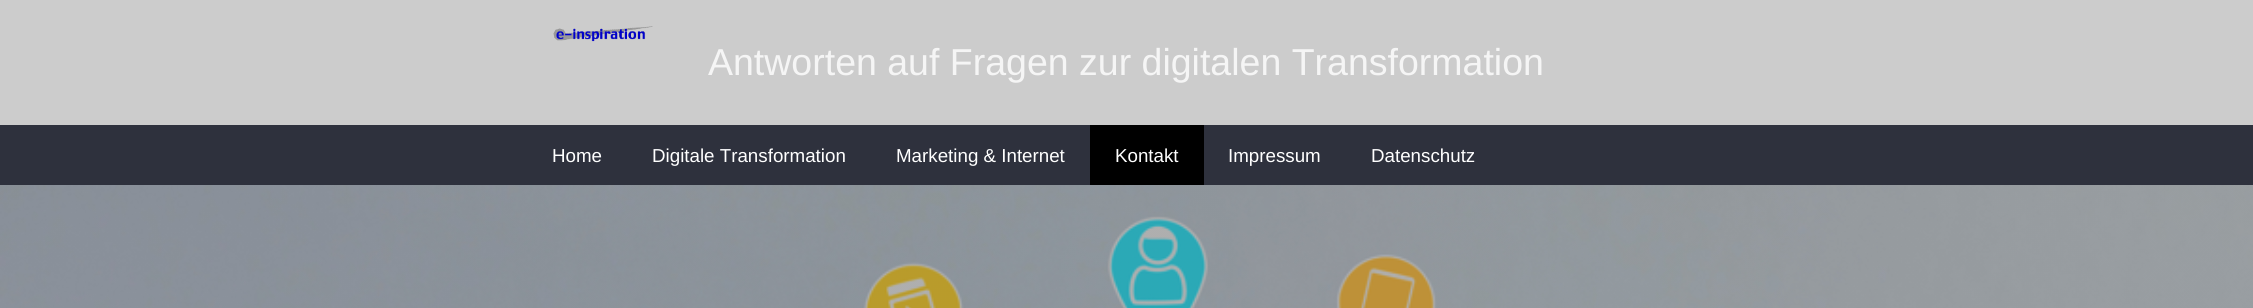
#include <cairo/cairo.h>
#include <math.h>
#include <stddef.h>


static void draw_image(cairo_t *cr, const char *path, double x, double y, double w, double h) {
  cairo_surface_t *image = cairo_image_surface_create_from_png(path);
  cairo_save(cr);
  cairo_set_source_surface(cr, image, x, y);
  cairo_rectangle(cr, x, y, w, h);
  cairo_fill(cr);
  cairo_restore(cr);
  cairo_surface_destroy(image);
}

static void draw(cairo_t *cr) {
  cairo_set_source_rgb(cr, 204 / 255.0, 204 / 255.0, 204 / 255.0);
  cairo_paint(cr);
  draw_image(cr, "images/1.png", 553, 26, 100, 16);
  cairo_set_source_rgb(cr, 46 / 255.0, 49 / 255.0, 61 / 255.0);
  cairo_rectangle(cr, 0, 125, 2253, 60);
  cairo_fill(cr);
  cairo_set_source_rgb(cr, 0, 0, 0);
  cairo_rectangle(cr, 1090, 125, 114, 60);
  cairo_fill(cr);
  draw_image(cr, "images/2.png", 0, 185, 2253, 123);
  cairo_select_font_face(cr, "Liberation Sans", CAIRO_FONT_SLANT_NORMAL, CAIRO_FONT_WEIGHT_NORMAL);
  cairo_set_font_size(cr, 37.5);
  cairo_set_source_rgb(cr, 245 / 255.0, 245 / 255.0, 245 / 255.0);
  cairo_move_to(cr, 708, 75);
  cairo_show_text(cr, "Antworten auf Fragen zur digitalen Transformation");
  cairo_set_font_size(cr, 18.75);
  cairo_set_source_rgb(cr, 1, 1, 1);
  cairo_move_to(cr, 552, 162);
  cairo_show_text(cr, "Home");
  cairo_move_to(cr, 652, 162);
  cairo_show_text(cr, "Digitale Transformation");
  cairo_move_to(cr, 896, 162);
  cairo_show_text(cr, "Marketing & Internet");
  cairo_move_to(cr, 1115, 162);
  cairo_show_text(cr, "Kontakt");
  cairo_move_to(cr, 1228, 162);
  cairo_show_text(cr, "Impressum");
  cairo_move_to(cr, 1371, 162);
  cairo_show_text(cr, "Datenschutz");
}

int main(void) {
  cairo_surface_t *surface = cairo_image_surface_create(CAIRO_FORMAT_RGB24, 2253, 308);
  cairo_t *cr = cairo_create(surface);
  cairo_font_options_t *options = cairo_font_options_create();
  cairo_font_options_set_hint_metrics(options, CAIRO_HINT_METRICS_OFF);
  cairo_font_options_set_hint_style(options, CAIRO_HINT_STYLE_NONE);
  cairo_set_font_options(cr, options);
  cairo_set_miter_limit(cr, 4);
  draw(cr);
  cairo_surface_write_to_png(surface, "out.png");
  cairo_font_options_destroy(options);
  cairo_destroy(cr);
  cairo_surface_destroy(surface);
  return 0;
}
